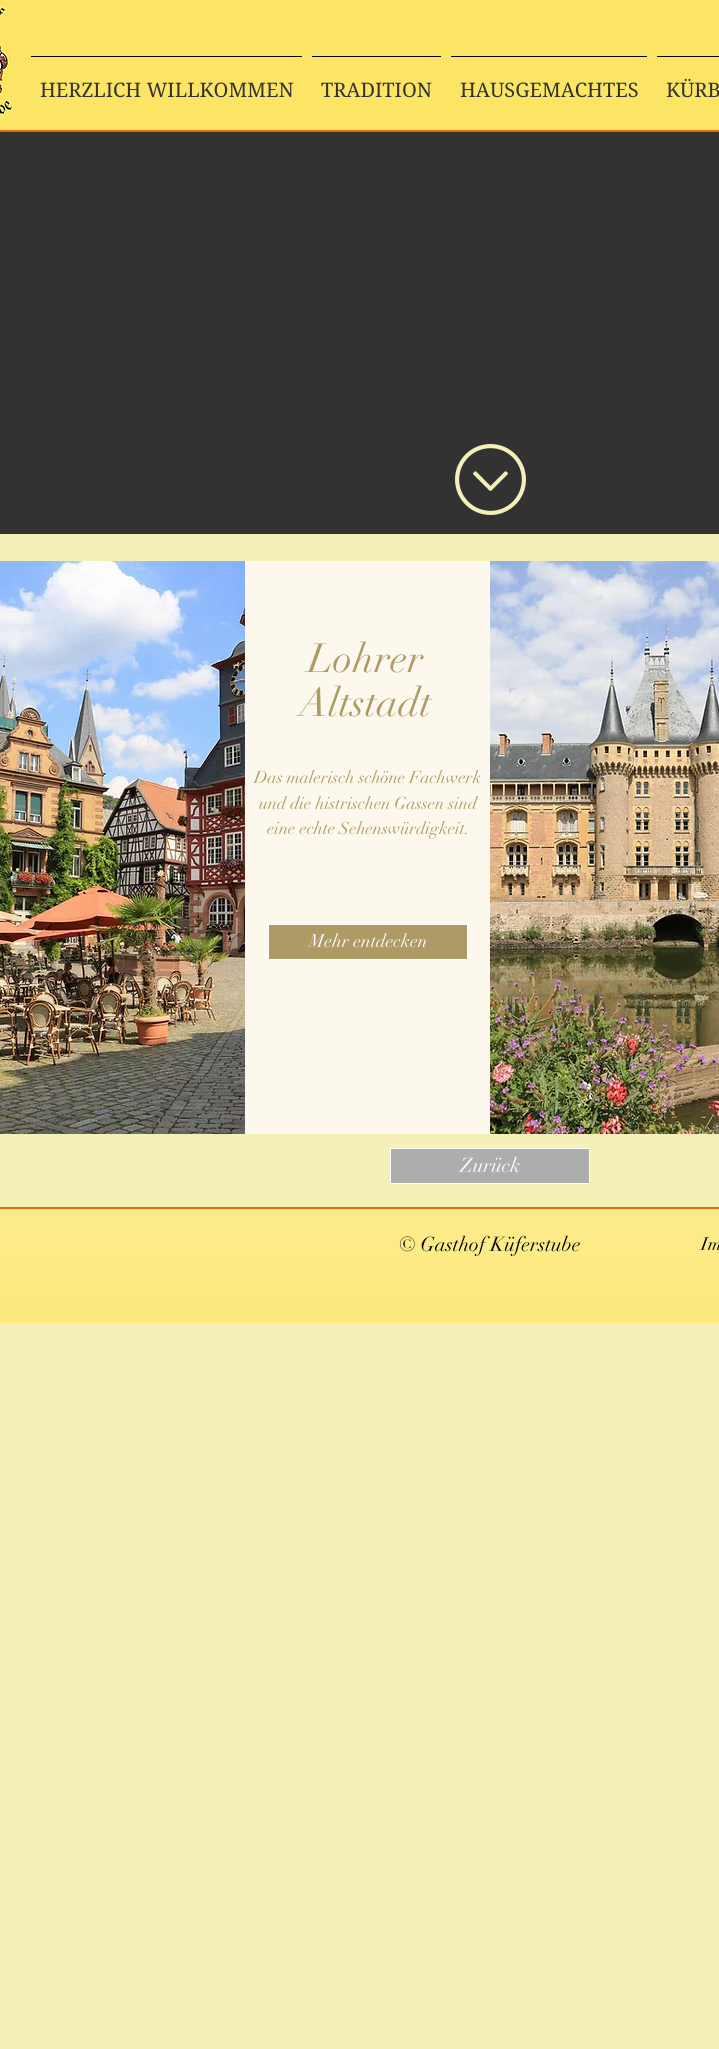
#include <cairo/cairo.h>
#include <math.h>
#include <stddef.h>


static void draw_image(cairo_t *cr, const char *path, double x, double y, double w, double h) {
  cairo_surface_t *image = cairo_image_surface_create_from_png(path);
  cairo_save(cr);
  cairo_set_source_surface(cr, image, x, y);
  cairo_rectangle(cr, x, y, w, h);
  cairo_fill(cr);
  cairo_restore(cr);
  cairo_surface_destroy(image);
}

static void draw(cairo_t *cr) {
  cairo_set_source_rgb(cr, 245 / 255.0, 239 / 255.0, 184 / 255.0);
  cairo_paint(cr);
  cairo_set_source_rgb(cr, 237 / 255.0, 104 / 255.0, 9 / 255.0);
  cairo_rectangle(cr, 0, 130, 719, 2);
  cairo_fill(cr);
  cairo_set_source_rgb(cr, 252 / 255.0, 229 / 255.0, 101 / 255.0);
  cairo_rectangle(cr, 0, 0, 719, 130);
  cairo_fill(cr);
  draw_image(cr, "images/1.png", 0, 7, 13, 109);
  cairo_set_source_rgb(cr, 0, 0, 0);
  cairo_rectangle(cr, 31, 56, 271, 1);
  cairo_fill(cr);
  cairo_rectangle(cr, 312, 56, 129, 1);
  cairo_fill(cr);
  cairo_rectangle(cr, 451, 56, 196, 1);
  cairo_fill(cr);
  cairo_rectangle(cr, 657, 56, 62, 1);
  cairo_fill(cr);
  cairo_set_source_rgb(cr, 50 / 255.0, 50 / 255.0, 50 / 255.0);
  cairo_rectangle(cr, 0, 132, 719, 402);
  cairo_fill(cr);
  draw_image(cr, "images/2.png", 455, 444, 71, 71);
  draw_image(cr, "images/3.png", 0, 561, 245, 573);
  cairo_set_source_rgb(cr, 252 / 255.0, 248 / 255.0, 237 / 255.0);
  cairo_rectangle(cr, 245, 561, 245, 573);
  cairo_fill(cr);
  cairo_set_source_rgb(cr, 174 / 255.0, 154 / 255.0, 100 / 255.0);
  cairo_rectangle(cr, 268.5, 924.5, 199, 35);
  cairo_fill_preserve(cr);
  cairo_set_source_rgb(cr, 1, 1, 1);
  cairo_set_line_width(cr, 1);
  cairo_stroke(cr);
  draw_image(cr, "images/4.png", 490, 561, 229, 573);
  cairo_set_source_rgb(cr, 173 / 255.0, 173 / 255.0, 173 / 255.0);
  cairo_rectangle(cr, 390.5, 1148.5, 199, 35);
  cairo_fill_preserve(cr);
  cairo_set_source_rgb(cr, 1, 1, 1);
  cairo_stroke(cr);
  cairo_set_source_rgb(cr, 252 / 255.0, 229 / 255.0, 101 / 255.0);
  cairo_rectangle(cr, 0, 1209, 719, 114);
  cairo_fill(cr);
  draw_image(cr, "images/5.png", 0, 1209, 719, 114);
  cairo_set_source_rgb(cr, 237 / 255.0, 104 / 255.0, 9 / 255.0);
  cairo_rectangle(cr, 0, 1207, 719, 2);
  cairo_fill(cr);
  cairo_select_font_face(cr, "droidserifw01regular", CAIRO_FONT_SLANT_NORMAL, CAIRO_FONT_WEIGHT_NORMAL);
  cairo_set_font_size(cr, 20);
  cairo_set_source_rgb(cr, 50 / 255.0, 50 / 255.0, 50 / 255.0);
  cairo_move_to(cr, 40, 97);
  cairo_show_text(cr, "HERZLICH WILLKOMMEN");
  cairo_move_to(cr, 321, 97);
  cairo_show_text(cr, "TRADITION");
  cairo_move_to(cr, 460, 97);
  cairo_show_text(cr, "HAUSGEMACHTES");
  cairo_move_to(cr, 666, 97);
  cairo_show_text(cr, "KÜRB");
  cairo_select_font_face(cr, "didot", CAIRO_FONT_SLANT_NORMAL, CAIRO_FONT_WEIGHT_NORMAL);
  cairo_set_font_size(cr, 40);
  cairo_set_source_rgb(cr, 174 / 255.0, 154 / 255.0, 100 / 255.0);
  cairo_move_to(cr, 308, 672);
  cairo_show_text(cr, "Lohrer");
  cairo_move_to(cr, 299, 716);
  cairo_show_text(cr, "Altstadt");
  cairo_set_font_size(cr, 17);
  cairo_move_to(cr, 254, 783);
  cairo_show_text(cr, "Das malerisch schöne Fachwerk");
  cairo_move_to(cr, 259, 809);
  cairo_show_text(cr, "und die histrischen Gassen sind");
  cairo_move_to(cr, 267, 834);
  cairo_show_text(cr, "eine echte Sehenswürdigkeit.");
  cairo_set_font_size(cr, 18);
  cairo_set_source_rgb(cr, 1, 1, 1);
  cairo_move_to(cr, 309, 947);
  cairo_show_text(cr, "Mehr entdecken");
  cairo_set_font_size(cr, 20);
  cairo_move_to(cr, 460, 1172);
  cairo_show_text(cr, "Zurück");
  cairo_set_source_rgb(cr, 0, 0, 0);
  cairo_move_to(cr, 399, 1251);
  cairo_show_text(cr, "© Gasthof Küferstube");
  cairo_set_font_size(cr, 18);
  cairo_move_to(cr, 701, 1250);
  cairo_show_text(cr, "Im");
}

int main(void) {
  cairo_surface_t *surface = cairo_image_surface_create(CAIRO_FORMAT_RGB24, 719, 2049);
  cairo_t *cr = cairo_create(surface);
  cairo_font_options_t *options = cairo_font_options_create();
  cairo_font_options_set_hint_metrics(options, CAIRO_HINT_METRICS_OFF);
  cairo_font_options_set_hint_style(options, CAIRO_HINT_STYLE_NONE);
  cairo_set_font_options(cr, options);
  cairo_set_miter_limit(cr, 4);
  draw(cr);
  cairo_surface_write_to_png(surface, "out.png");
  cairo_font_options_destroy(options);
  cairo_destroy(cr);
  cairo_surface_destroy(surface);
  return 0;
}
